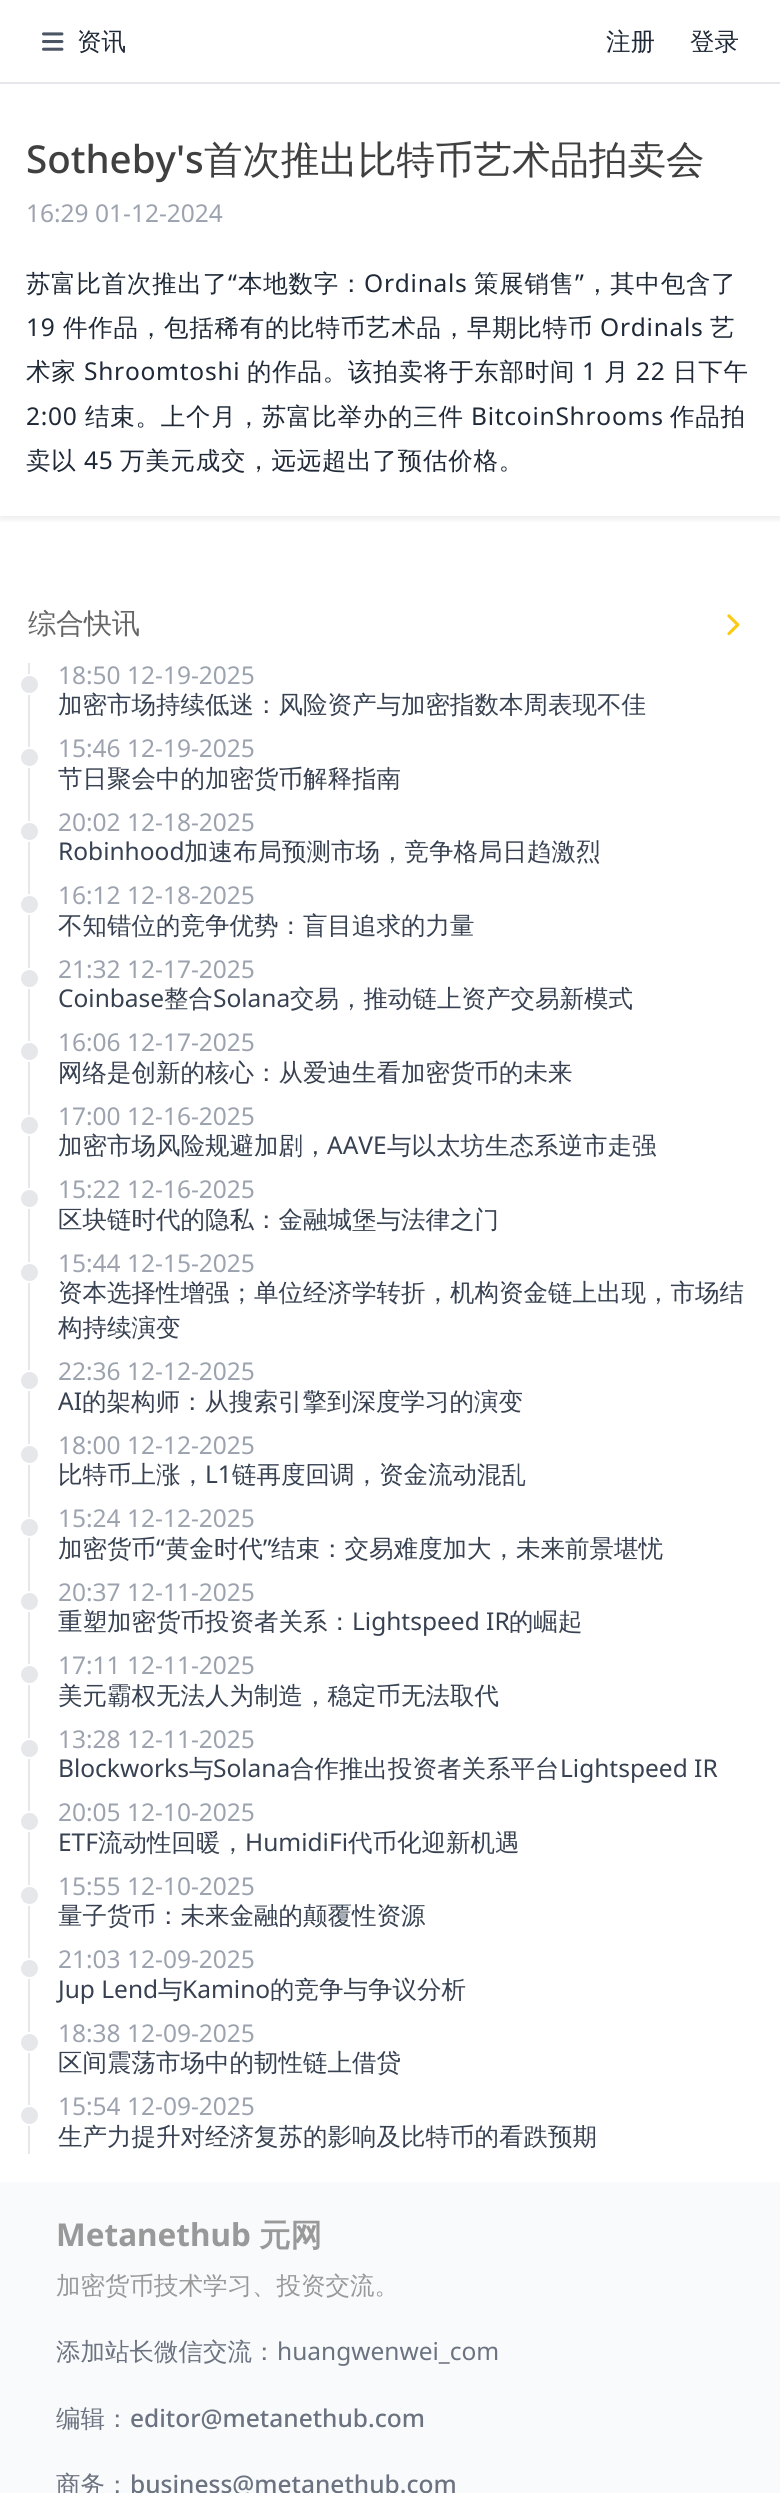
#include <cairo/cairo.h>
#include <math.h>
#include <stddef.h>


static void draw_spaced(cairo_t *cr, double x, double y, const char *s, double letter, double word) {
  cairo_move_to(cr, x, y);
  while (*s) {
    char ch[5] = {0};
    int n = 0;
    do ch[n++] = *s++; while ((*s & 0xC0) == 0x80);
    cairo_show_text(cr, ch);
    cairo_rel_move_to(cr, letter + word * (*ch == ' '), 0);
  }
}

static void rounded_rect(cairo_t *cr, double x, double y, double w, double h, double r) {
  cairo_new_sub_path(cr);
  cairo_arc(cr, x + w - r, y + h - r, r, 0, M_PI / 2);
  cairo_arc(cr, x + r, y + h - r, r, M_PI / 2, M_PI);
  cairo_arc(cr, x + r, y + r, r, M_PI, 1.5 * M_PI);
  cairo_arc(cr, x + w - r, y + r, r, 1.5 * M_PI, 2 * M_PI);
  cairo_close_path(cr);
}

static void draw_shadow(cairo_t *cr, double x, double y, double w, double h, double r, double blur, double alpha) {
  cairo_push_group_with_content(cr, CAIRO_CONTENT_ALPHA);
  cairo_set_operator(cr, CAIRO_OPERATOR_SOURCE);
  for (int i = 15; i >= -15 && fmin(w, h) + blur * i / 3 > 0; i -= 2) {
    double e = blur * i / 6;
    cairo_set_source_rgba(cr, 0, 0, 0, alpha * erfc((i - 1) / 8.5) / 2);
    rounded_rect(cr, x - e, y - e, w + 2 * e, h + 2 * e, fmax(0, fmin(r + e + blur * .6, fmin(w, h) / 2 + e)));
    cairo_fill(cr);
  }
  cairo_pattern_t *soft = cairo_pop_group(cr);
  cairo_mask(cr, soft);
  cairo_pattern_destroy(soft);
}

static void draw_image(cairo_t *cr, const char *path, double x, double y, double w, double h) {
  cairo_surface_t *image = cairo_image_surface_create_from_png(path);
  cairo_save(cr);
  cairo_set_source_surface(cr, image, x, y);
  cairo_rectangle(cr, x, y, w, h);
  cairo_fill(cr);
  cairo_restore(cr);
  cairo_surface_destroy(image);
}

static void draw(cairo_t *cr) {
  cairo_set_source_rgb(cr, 1, 1, 1);
  cairo_paint(cr);
  cairo_save(cr);
  cairo_rectangle(cr, 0, 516, 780, 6);
  cairo_clip(cr);
  cairo_set_source_rgb(cr, 0, 0, 0);
  draw_shadow(cr, 0, 89, 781, 431, 0, 3.5, 0.07);
  cairo_restore(cr);
  cairo_set_source_rgb(cr, 229 / 255.0, 231 / 255.0, 235 / 255.0);
  cairo_rectangle(cr, 0, 82, 780, 2);
  cairo_fill(cr);
  draw_image(cr, "images/1.png", 42, 32, 22, 19);
  draw_image(cr, "images/2.png", 727, 614, 13, 22);
  cairo_rectangle(cr, 28, 663, 2, 1491);
  cairo_fill(cr);
  cairo_arc(cr, 29.5, 684.5, 9.5, 0, 2 * M_PI);
  cairo_fill_preserve(cr);
  cairo_set_source_rgb(cr, 1, 1, 1);
  cairo_stroke(cr);
  cairo_set_source_rgb(cr, 229 / 255.0, 231 / 255.0, 235 / 255.0);
  cairo_arc(cr, 29.5, 757.5, 9.5, 0, 2 * M_PI);
  cairo_fill_preserve(cr);
  cairo_set_source_rgb(cr, 1, 1, 1);
  cairo_stroke(cr);
  cairo_set_source_rgb(cr, 229 / 255.0, 231 / 255.0, 235 / 255.0);
  cairo_arc(cr, 29.5, 831.5, 9.5, 0, 2 * M_PI);
  cairo_fill_preserve(cr);
  cairo_set_source_rgb(cr, 1, 1, 1);
  cairo_stroke(cr);
  cairo_set_source_rgb(cr, 229 / 255.0, 231 / 255.0, 235 / 255.0);
  cairo_arc(cr, 29.5, 904.5, 9.5, 0, 2 * M_PI);
  cairo_fill_preserve(cr);
  cairo_set_source_rgb(cr, 1, 1, 1);
  cairo_stroke(cr);
  cairo_set_source_rgb(cr, 229 / 255.0, 231 / 255.0, 235 / 255.0);
  cairo_arc(cr, 29.5, 978.5, 9.5, 0, 2 * M_PI);
  cairo_fill_preserve(cr);
  cairo_set_source_rgb(cr, 1, 1, 1);
  cairo_stroke(cr);
  cairo_set_source_rgb(cr, 229 / 255.0, 231 / 255.0, 235 / 255.0);
  cairo_arc(cr, 29.5, 1051.5, 9.5, 0, 2 * M_PI);
  cairo_fill_preserve(cr);
  cairo_set_source_rgb(cr, 1, 1, 1);
  cairo_stroke(cr);
  cairo_set_source_rgb(cr, 229 / 255.0, 231 / 255.0, 235 / 255.0);
  cairo_arc(cr, 29.5, 1125.5, 9.5, 0, 2 * M_PI);
  cairo_fill_preserve(cr);
  cairo_set_source_rgb(cr, 1, 1, 1);
  cairo_stroke(cr);
  cairo_set_source_rgb(cr, 229 / 255.0, 231 / 255.0, 235 / 255.0);
  cairo_arc(cr, 29.5, 1198.5, 9.5, 0, 2 * M_PI);
  cairo_fill_preserve(cr);
  cairo_set_source_rgb(cr, 1, 1, 1);
  cairo_stroke(cr);
  cairo_set_source_rgb(cr, 229 / 255.0, 231 / 255.0, 235 / 255.0);
  cairo_arc(cr, 29.5, 1272.5, 9.5, 0, 2 * M_PI);
  cairo_fill_preserve(cr);
  cairo_set_source_rgb(cr, 1, 1, 1);
  cairo_stroke(cr);
  cairo_set_source_rgb(cr, 229 / 255.0, 231 / 255.0, 235 / 255.0);
  cairo_arc(cr, 29.5, 1380.5, 9.5, 0, 2 * M_PI);
  cairo_fill_preserve(cr);
  cairo_set_source_rgb(cr, 1, 1, 1);
  cairo_stroke(cr);
  cairo_set_source_rgb(cr, 229 / 255.0, 231 / 255.0, 235 / 255.0);
  cairo_arc(cr, 29.5, 1454.5, 9.5, 0, 2 * M_PI);
  cairo_fill_preserve(cr);
  cairo_set_source_rgb(cr, 1, 1, 1);
  cairo_stroke(cr);
  cairo_set_source_rgb(cr, 229 / 255.0, 231 / 255.0, 235 / 255.0);
  cairo_arc(cr, 29.5, 1527.5, 9.5, 0, 2 * M_PI);
  cairo_fill_preserve(cr);
  cairo_set_source_rgb(cr, 1, 1, 1);
  cairo_stroke(cr);
  cairo_set_source_rgb(cr, 229 / 255.0, 231 / 255.0, 235 / 255.0);
  cairo_arc(cr, 29.5, 1601.5, 9.5, 0, 2 * M_PI);
  cairo_fill_preserve(cr);
  cairo_set_source_rgb(cr, 1, 1, 1);
  cairo_stroke(cr);
  cairo_set_source_rgb(cr, 229 / 255.0, 231 / 255.0, 235 / 255.0);
  cairo_arc(cr, 29.5, 1674.5, 9.5, 0, 2 * M_PI);
  cairo_fill_preserve(cr);
  cairo_set_source_rgb(cr, 1, 1, 1);
  cairo_stroke(cr);
  cairo_set_source_rgb(cr, 229 / 255.0, 231 / 255.0, 235 / 255.0);
  cairo_arc(cr, 29.5, 1748.5, 9.5, 0, 2 * M_PI);
  cairo_fill_preserve(cr);
  cairo_set_source_rgb(cr, 1, 1, 1);
  cairo_stroke(cr);
  cairo_set_source_rgb(cr, 229 / 255.0, 231 / 255.0, 235 / 255.0);
  cairo_arc(cr, 29.5, 1821.5, 9.5, 0, 2 * M_PI);
  cairo_fill_preserve(cr);
  cairo_set_source_rgb(cr, 1, 1, 1);
  cairo_stroke(cr);
  cairo_set_source_rgb(cr, 229 / 255.0, 231 / 255.0, 235 / 255.0);
  cairo_arc(cr, 29.5, 1895.5, 9.5, 0, 2 * M_PI);
  cairo_fill_preserve(cr);
  cairo_set_source_rgb(cr, 1, 1, 1);
  cairo_stroke(cr);
  cairo_set_source_rgb(cr, 229 / 255.0, 231 / 255.0, 235 / 255.0);
  cairo_arc(cr, 29.5, 1968.5, 9.5, 0, 2 * M_PI);
  cairo_fill_preserve(cr);
  cairo_set_source_rgb(cr, 1, 1, 1);
  cairo_stroke(cr);
  cairo_set_source_rgb(cr, 229 / 255.0, 231 / 255.0, 235 / 255.0);
  cairo_arc(cr, 29.5, 2042.5, 9.5, 0, 2 * M_PI);
  cairo_fill_preserve(cr);
  cairo_set_source_rgb(cr, 1, 1, 1);
  cairo_stroke(cr);
  cairo_set_source_rgb(cr, 229 / 255.0, 231 / 255.0, 235 / 255.0);
  cairo_arc(cr, 29.5, 2115.5, 9.5, 0, 2 * M_PI);
  cairo_fill_preserve(cr);
  cairo_set_source_rgb(cr, 1, 1, 1);
  cairo_stroke(cr);
  cairo_set_source_rgb(cr, 249 / 255.0, 250 / 255.0, 251 / 255.0);
  cairo_rectangle(cr, 0, 2182, 780, 311);
  cairo_fill(cr);
  cairo_select_font_face(cr, "WenQuanYi Zen Hei Medium", CAIRO_FONT_SLANT_NORMAL, CAIRO_FONT_WEIGHT_NORMAL);
  cairo_set_font_size(cr, 24.5);
  cairo_set_source_rgb(cr, 31 / 255.0, 41 / 255.0, 55 / 255.0);
  cairo_move_to(cr, 77, 50);
  cairo_show_text(cr, "资讯");
  cairo_move_to(cr, 606, 50);
  cairo_show_text(cr, "注册");
  cairo_move_to(cr, 690, 50);
  cairo_show_text(cr, "登录");
  cairo_select_font_face(cr, "Noto Sans Medium", CAIRO_FONT_SLANT_NORMAL, CAIRO_FONT_WEIGHT_NORMAL);
  cairo_set_font_size(cr, 38.5);
  cairo_set_source_rgb(cr, 64 / 255.0, 64 / 255.0, 64 / 255.0);
  cairo_move_to(cr, 26, 173);
  cairo_show_text(cr, "Sotheby's");
  cairo_select_font_face(cr, "WenQuanYi Zen Hei Medium", CAIRO_FONT_SLANT_NORMAL, CAIRO_FONT_WEIGHT_NORMAL);
  cairo_move_to(cr, 204, 173);
  cairo_show_text(cr, "首次推出比特币艺术品拍卖会");
  cairo_select_font_face(cr, "Noto Sans", CAIRO_FONT_SLANT_NORMAL, CAIRO_FONT_WEIGHT_NORMAL);
  cairo_set_font_size(cr, 24.5);
  cairo_set_source_rgb(cr, 156 / 255.0, 163 / 255.0, 175 / 255.0);
  cairo_move_to(cr, 26, 222);
  cairo_show_text(cr, "16:29 01-12-2024");
  cairo_select_font_face(cr, "WenQuanYi Zen Hei Medium", CAIRO_FONT_SLANT_NORMAL, CAIRO_FONT_WEIGHT_NORMAL);
  cairo_set_source_rgb(cr, 31 / 255.0, 41 / 255.0, 55 / 255.0);
  draw_spaced(cr, 26, 292, "苏富比首次推出了", 0.75, 0);
  cairo_select_font_face(cr, "Noto Sans", CAIRO_FONT_SLANT_NORMAL, CAIRO_FONT_WEIGHT_NORMAL);
  draw_spaced(cr, 228, 292, "“", 0.75, 0);
  cairo_select_font_face(cr, "WenQuanYi Zen Hei Medium", CAIRO_FONT_SLANT_NORMAL, CAIRO_FONT_WEIGHT_NORMAL);
  draw_spaced(cr, 238, 292, "本地数字：", 0.75, 0);
  cairo_select_font_face(cr, "Noto Sans", CAIRO_FONT_SLANT_NORMAL, CAIRO_FONT_WEIGHT_NORMAL);
  draw_spaced(cr, 364, 292, "Ordinals", 0.75, 0);
  cairo_select_font_face(cr, "WenQuanYi Zen Hei Medium", CAIRO_FONT_SLANT_NORMAL, CAIRO_FONT_WEIGHT_NORMAL);
  draw_spaced(cr, 474, 292, "策展销售", 0.75, 0);
  cairo_select_font_face(cr, "Noto Sans", CAIRO_FONT_SLANT_NORMAL, CAIRO_FONT_WEIGHT_NORMAL);
  draw_spaced(cr, 575, 292, "”", 0.75, 0);
  cairo_select_font_face(cr, "WenQuanYi Zen Hei Medium", CAIRO_FONT_SLANT_NORMAL, CAIRO_FONT_WEIGHT_NORMAL);
  draw_spaced(cr, 585, 292, "，其中包含了", 0.75, 0);
  cairo_select_font_face(cr, "Noto Sans", CAIRO_FONT_SLANT_NORMAL, CAIRO_FONT_WEIGHT_NORMAL);
  draw_spaced(cr, 26, 336, "19", 0.75, 0);
  cairo_select_font_face(cr, "WenQuanYi Zen Hei Medium", CAIRO_FONT_SLANT_NORMAL, CAIRO_FONT_WEIGHT_NORMAL);
  draw_spaced(cr, 63, 336, "件作品，包括稀有的比特币艺术品，早期比特币", 0.75, 0);
  cairo_select_font_face(cr, "Noto Sans", CAIRO_FONT_SLANT_NORMAL, CAIRO_FONT_WEIGHT_NORMAL);
  draw_spaced(cr, 600, 336, "Ordinals", 0.75, 0);
  cairo_select_font_face(cr, "WenQuanYi Zen Hei Medium", CAIRO_FONT_SLANT_NORMAL, CAIRO_FONT_WEIGHT_NORMAL);
  draw_spaced(cr, 710, 336, "艺", 0.75, 0);
  draw_spaced(cr, 26, 380, "术家", 0.75, 0);
  cairo_select_font_face(cr, "Noto Sans", CAIRO_FONT_SLANT_NORMAL, CAIRO_FONT_WEIGHT_NORMAL);
  draw_spaced(cr, 84, 380, "Shroomtoshi", 0.75, 0);
  cairo_select_font_face(cr, "WenQuanYi Zen Hei Medium", CAIRO_FONT_SLANT_NORMAL, CAIRO_FONT_WEIGHT_NORMAL);
  draw_spaced(cr, 247, 380, "的作品。该拍卖将于东部时间", 0.75, 0);
  cairo_select_font_face(cr, "Noto Sans", CAIRO_FONT_SLANT_NORMAL, CAIRO_FONT_WEIGHT_NORMAL);
  draw_spaced(cr, 582, 380, "1", 0.75, 0);
  cairo_select_font_face(cr, "WenQuanYi Zen Hei Medium", CAIRO_FONT_SLANT_NORMAL, CAIRO_FONT_WEIGHT_NORMAL);
  draw_spaced(cr, 604, 380, "月", 0.75, 0);
  cairo_select_font_face(cr, "Noto Sans", CAIRO_FONT_SLANT_NORMAL, CAIRO_FONT_WEIGHT_NORMAL);
  draw_spaced(cr, 636, 380, "22", 0.75, 0);
  cairo_select_font_face(cr, "WenQuanYi Zen Hei Medium", CAIRO_FONT_SLANT_NORMAL, CAIRO_FONT_WEIGHT_NORMAL);
  draw_spaced(cr, 673, 380, "日下午", 0.75, 0);
  cairo_select_font_face(cr, "Noto Sans", CAIRO_FONT_SLANT_NORMAL, CAIRO_FONT_WEIGHT_NORMAL);
  draw_spaced(cr, 26, 425, "2:00", 0.75, 0);
  cairo_select_font_face(cr, "WenQuanYi Zen Hei Medium", CAIRO_FONT_SLANT_NORMAL, CAIRO_FONT_WEIGHT_NORMAL);
  draw_spaced(cr, 85, 425, "结束。上个月，苏富比举办的三件", 0.75, 0);
  cairo_select_font_face(cr, "Noto Sans", CAIRO_FONT_SLANT_NORMAL, CAIRO_FONT_WEIGHT_NORMAL);
  draw_spaced(cr, 471, 425, "BitcoinShrooms", 0.75, 0);
  cairo_select_font_face(cr, "WenQuanYi Zen Hei Medium", CAIRO_FONT_SLANT_NORMAL, CAIRO_FONT_WEIGHT_NORMAL);
  draw_spaced(cr, 670, 425, "作品拍", 0.75, 0);
  draw_spaced(cr, 26, 469, "卖以", 0.75, 0);
  cairo_select_font_face(cr, "Noto Sans", CAIRO_FONT_SLANT_NORMAL, CAIRO_FONT_WEIGHT_NORMAL);
  draw_spaced(cr, 84, 469, "45", 0.75, 0);
  cairo_select_font_face(cr, "WenQuanYi Zen Hei Medium", CAIRO_FONT_SLANT_NORMAL, CAIRO_FONT_WEIGHT_NORMAL);
  draw_spaced(cr, 120, 469, "万美元成交，远远超出了预估价格。", 0.75, 0);
  cairo_set_font_size(cr, 28);
  cairo_set_source_rgb(cr, 102 / 255.0, 102 / 255.0, 102 / 255.0);
  cairo_move_to(cr, 28, 633);
  cairo_show_text(cr, "综合快讯");
  cairo_select_font_face(cr, "Noto Sans", CAIRO_FONT_SLANT_NORMAL, CAIRO_FONT_WEIGHT_NORMAL);
  cairo_set_font_size(cr, 24.5);
  cairo_set_source_rgb(cr, 156 / 255.0, 163 / 255.0, 175 / 255.0);
  cairo_move_to(cr, 58, 684);
  cairo_show_text(cr, "18:50 12-19-2025");
  cairo_select_font_face(cr, "WenQuanYi Zen Hei Medium", CAIRO_FONT_SLANT_NORMAL, CAIRO_FONT_WEIGHT_NORMAL);
  cairo_set_source_rgb(cr, 55 / 255.0, 65 / 255.0, 81 / 255.0);
  cairo_move_to(cr, 58, 713);
  cairo_show_text(cr, "加密市场持续低迷：风险资产与加密指数本周表现不佳");
  cairo_select_font_face(cr, "Noto Sans", CAIRO_FONT_SLANT_NORMAL, CAIRO_FONT_WEIGHT_NORMAL);
  cairo_set_source_rgb(cr, 156 / 255.0, 163 / 255.0, 175 / 255.0);
  cairo_move_to(cr, 58, 757);
  cairo_show_text(cr, "15:46 12-19-2025");
  cairo_select_font_face(cr, "WenQuanYi Zen Hei Medium", CAIRO_FONT_SLANT_NORMAL, CAIRO_FONT_WEIGHT_NORMAL);
  cairo_set_source_rgb(cr, 55 / 255.0, 65 / 255.0, 81 / 255.0);
  cairo_move_to(cr, 58, 787);
  cairo_show_text(cr, "节日聚会中的加密货币解释指南");
  cairo_select_font_face(cr, "Noto Sans", CAIRO_FONT_SLANT_NORMAL, CAIRO_FONT_WEIGHT_NORMAL);
  cairo_set_source_rgb(cr, 156 / 255.0, 163 / 255.0, 175 / 255.0);
  cairo_move_to(cr, 58, 831);
  cairo_show_text(cr, "20:02 12-18-2025");
  cairo_set_source_rgb(cr, 55 / 255.0, 65 / 255.0, 81 / 255.0);
  cairo_move_to(cr, 58, 860);
  cairo_show_text(cr, "Robinhood");
  cairo_select_font_face(cr, "WenQuanYi Zen Hei Medium", CAIRO_FONT_SLANT_NORMAL, CAIRO_FONT_WEIGHT_NORMAL);
  cairo_move_to(cr, 184, 860);
  cairo_show_text(cr, "加速布局预测市场，竞争格局日趋激烈");
  cairo_select_font_face(cr, "Noto Sans", CAIRO_FONT_SLANT_NORMAL, CAIRO_FONT_WEIGHT_NORMAL);
  cairo_set_source_rgb(cr, 156 / 255.0, 163 / 255.0, 175 / 255.0);
  cairo_move_to(cr, 58, 904);
  cairo_show_text(cr, "16:12 12-18-2025");
  cairo_select_font_face(cr, "WenQuanYi Zen Hei Medium", CAIRO_FONT_SLANT_NORMAL, CAIRO_FONT_WEIGHT_NORMAL);
  cairo_set_source_rgb(cr, 55 / 255.0, 65 / 255.0, 81 / 255.0);
  cairo_move_to(cr, 58, 934);
  cairo_show_text(cr, "不知错位的竞争优势：盲目追求的力量");
  cairo_select_font_face(cr, "Noto Sans", CAIRO_FONT_SLANT_NORMAL, CAIRO_FONT_WEIGHT_NORMAL);
  cairo_set_source_rgb(cr, 156 / 255.0, 163 / 255.0, 175 / 255.0);
  cairo_move_to(cr, 58, 978);
  cairo_show_text(cr, "21:32 12-17-2025");
  cairo_set_source_rgb(cr, 55 / 255.0, 65 / 255.0, 81 / 255.0);
  cairo_move_to(cr, 58, 1007);
  cairo_show_text(cr, "Coinbase");
  cairo_select_font_face(cr, "WenQuanYi Zen Hei Medium", CAIRO_FONT_SLANT_NORMAL, CAIRO_FONT_WEIGHT_NORMAL);
  cairo_move_to(cr, 164, 1007);
  cairo_show_text(cr, "整合");
  cairo_select_font_face(cr, "Noto Sans", CAIRO_FONT_SLANT_NORMAL, CAIRO_FONT_WEIGHT_NORMAL);
  cairo_move_to(cr, 213, 1007);
  cairo_show_text(cr, "Solana");
  cairo_select_font_face(cr, "WenQuanYi Zen Hei Medium", CAIRO_FONT_SLANT_NORMAL, CAIRO_FONT_WEIGHT_NORMAL);
  cairo_move_to(cr, 290, 1007);
  cairo_show_text(cr, "交易，推动链上资产交易新模式");
  cairo_select_font_face(cr, "Noto Sans", CAIRO_FONT_SLANT_NORMAL, CAIRO_FONT_WEIGHT_NORMAL);
  cairo_set_source_rgb(cr, 156 / 255.0, 163 / 255.0, 175 / 255.0);
  cairo_move_to(cr, 58, 1051);
  cairo_show_text(cr, "16:06 12-17-2025");
  cairo_select_font_face(cr, "WenQuanYi Zen Hei Medium", CAIRO_FONT_SLANT_NORMAL, CAIRO_FONT_WEIGHT_NORMAL);
  cairo_set_source_rgb(cr, 55 / 255.0, 65 / 255.0, 81 / 255.0);
  cairo_move_to(cr, 58, 1081);
  cairo_show_text(cr, "网络是创新的核心：从爱迪生看加密货币的未来");
  cairo_select_font_face(cr, "Noto Sans", CAIRO_FONT_SLANT_NORMAL, CAIRO_FONT_WEIGHT_NORMAL);
  cairo_set_source_rgb(cr, 156 / 255.0, 163 / 255.0, 175 / 255.0);
  cairo_move_to(cr, 58, 1125);
  cairo_show_text(cr, "17:00 12-16-2025");
  cairo_select_font_face(cr, "WenQuanYi Zen Hei Medium", CAIRO_FONT_SLANT_NORMAL, CAIRO_FONT_WEIGHT_NORMAL);
  cairo_set_source_rgb(cr, 55 / 255.0, 65 / 255.0, 81 / 255.0);
  cairo_move_to(cr, 58, 1154);
  cairo_show_text(cr, "加密市场风险规避加剧，");
  cairo_select_font_face(cr, "Noto Sans", CAIRO_FONT_SLANT_NORMAL, CAIRO_FONT_WEIGHT_NORMAL);
  cairo_move_to(cr, 327, 1154);
  cairo_show_text(cr, "AAVE");
  cairo_select_font_face(cr, "WenQuanYi Zen Hei Medium", CAIRO_FONT_SLANT_NORMAL, CAIRO_FONT_WEIGHT_NORMAL);
  cairo_move_to(cr, 387, 1154);
  cairo_show_text(cr, "与以太坊生态系逆市走强");
  cairo_select_font_face(cr, "Noto Sans", CAIRO_FONT_SLANT_NORMAL, CAIRO_FONT_WEIGHT_NORMAL);
  cairo_set_source_rgb(cr, 156 / 255.0, 163 / 255.0, 175 / 255.0);
  cairo_move_to(cr, 58, 1198);
  cairo_show_text(cr, "15:22 12-16-2025");
  cairo_select_font_face(cr, "WenQuanYi Zen Hei Medium", CAIRO_FONT_SLANT_NORMAL, CAIRO_FONT_WEIGHT_NORMAL);
  cairo_set_source_rgb(cr, 55 / 255.0, 65 / 255.0, 81 / 255.0);
  cairo_move_to(cr, 58, 1228);
  cairo_show_text(cr, "区块链时代的隐私：金融城堡与法律之门");
  cairo_select_font_face(cr, "Noto Sans", CAIRO_FONT_SLANT_NORMAL, CAIRO_FONT_WEIGHT_NORMAL);
  cairo_set_source_rgb(cr, 156 / 255.0, 163 / 255.0, 175 / 255.0);
  cairo_move_to(cr, 58, 1272);
  cairo_show_text(cr, "15:44 12-15-2025");
  cairo_select_font_face(cr, "WenQuanYi Zen Hei Medium", CAIRO_FONT_SLANT_NORMAL, CAIRO_FONT_WEIGHT_NORMAL);
  cairo_set_source_rgb(cr, 55 / 255.0, 65 / 255.0, 81 / 255.0);
  cairo_move_to(cr, 58, 1301);
  cairo_show_text(cr, "资本选择性增强；单位经济学转折，机构资金链上出现，市场结");
  cairo_move_to(cr, 58, 1336);
  cairo_show_text(cr, "构持续演变");
  cairo_select_font_face(cr, "Noto Sans", CAIRO_FONT_SLANT_NORMAL, CAIRO_FONT_WEIGHT_NORMAL);
  cairo_set_source_rgb(cr, 156 / 255.0, 163 / 255.0, 175 / 255.0);
  cairo_move_to(cr, 58, 1380);
  cairo_show_text(cr, "22:36 12-12-2025");
  cairo_set_source_rgb(cr, 55 / 255.0, 65 / 255.0, 81 / 255.0);
  cairo_move_to(cr, 58, 1410);
  cairo_show_text(cr, "AI");
  cairo_select_font_face(cr, "WenQuanYi Zen Hei Medium", CAIRO_FONT_SLANT_NORMAL, CAIRO_FONT_WEIGHT_NORMAL);
  cairo_move_to(cr, 82, 1410);
  cairo_show_text(cr, "的架构师：从搜索引擎到深度学习的演变");
  cairo_select_font_face(cr, "Noto Sans", CAIRO_FONT_SLANT_NORMAL, CAIRO_FONT_WEIGHT_NORMAL);
  cairo_set_source_rgb(cr, 156 / 255.0, 163 / 255.0, 175 / 255.0);
  cairo_move_to(cr, 58, 1454);
  cairo_show_text(cr, "18:00 12-12-2025");
  cairo_select_font_face(cr, "WenQuanYi Zen Hei Medium", CAIRO_FONT_SLANT_NORMAL, CAIRO_FONT_WEIGHT_NORMAL);
  cairo_set_source_rgb(cr, 55 / 255.0, 65 / 255.0, 81 / 255.0);
  cairo_move_to(cr, 58, 1483);
  cairo_show_text(cr, "比特币上涨，");
  cairo_select_font_face(cr, "Noto Sans", CAIRO_FONT_SLANT_NORMAL, CAIRO_FONT_WEIGHT_NORMAL);
  cairo_move_to(cr, 205, 1483);
  cairo_show_text(cr, "L1");
  cairo_select_font_face(cr, "WenQuanYi Zen Hei Medium", CAIRO_FONT_SLANT_NORMAL, CAIRO_FONT_WEIGHT_NORMAL);
  cairo_move_to(cr, 232, 1483);
  cairo_show_text(cr, "链再度回调，资金流动混乱");
  cairo_select_font_face(cr, "Noto Sans", CAIRO_FONT_SLANT_NORMAL, CAIRO_FONT_WEIGHT_NORMAL);
  cairo_set_source_rgb(cr, 156 / 255.0, 163 / 255.0, 175 / 255.0);
  cairo_move_to(cr, 58, 1527);
  cairo_show_text(cr, "15:24 12-12-2025");
  cairo_select_font_face(cr, "WenQuanYi Zen Hei Medium", CAIRO_FONT_SLANT_NORMAL, CAIRO_FONT_WEIGHT_NORMAL);
  cairo_set_source_rgb(cr, 55 / 255.0, 65 / 255.0, 81 / 255.0);
  cairo_move_to(cr, 58, 1557);
  cairo_show_text(cr, "加密货币");
  cairo_select_font_face(cr, "Noto Sans", CAIRO_FONT_SLANT_NORMAL, CAIRO_FONT_WEIGHT_NORMAL);
  cairo_move_to(cr, 156, 1557);
  cairo_show_text(cr, "“");
  cairo_select_font_face(cr, "WenQuanYi Zen Hei Medium", CAIRO_FONT_SLANT_NORMAL, CAIRO_FONT_WEIGHT_NORMAL);
  cairo_move_to(cr, 165, 1557);
  cairo_show_text(cr, "黄金时代");
  cairo_select_font_face(cr, "Noto Sans", CAIRO_FONT_SLANT_NORMAL, CAIRO_FONT_WEIGHT_NORMAL);
  cairo_move_to(cr, 263, 1557);
  cairo_show_text(cr, "”");
  cairo_select_font_face(cr, "WenQuanYi Zen Hei Medium", CAIRO_FONT_SLANT_NORMAL, CAIRO_FONT_WEIGHT_NORMAL);
  cairo_move_to(cr, 271, 1557);
  cairo_show_text(cr, "结束：交易难度加大，未来前景堪忧");
  cairo_select_font_face(cr, "Noto Sans", CAIRO_FONT_SLANT_NORMAL, CAIRO_FONT_WEIGHT_NORMAL);
  cairo_set_source_rgb(cr, 156 / 255.0, 163 / 255.0, 175 / 255.0);
  cairo_move_to(cr, 58, 1601);
  cairo_show_text(cr, "20:37 12-11-2025");
  cairo_select_font_face(cr, "WenQuanYi Zen Hei Medium", CAIRO_FONT_SLANT_NORMAL, CAIRO_FONT_WEIGHT_NORMAL);
  cairo_set_source_rgb(cr, 55 / 255.0, 65 / 255.0, 81 / 255.0);
  cairo_move_to(cr, 58, 1630);
  cairo_show_text(cr, "重塑加密货币投资者关系：");
  cairo_select_font_face(cr, "Noto Sans", CAIRO_FONT_SLANT_NORMAL, CAIRO_FONT_WEIGHT_NORMAL);
  cairo_move_to(cr, 352, 1630);
  cairo_show_text(cr, "Lightspeed IR");
  cairo_select_font_face(cr, "WenQuanYi Zen Hei Medium", CAIRO_FONT_SLANT_NORMAL, CAIRO_FONT_WEIGHT_NORMAL);
  cairo_move_to(cr, 509, 1630);
  cairo_show_text(cr, "的崛起");
  cairo_select_font_face(cr, "Noto Sans", CAIRO_FONT_SLANT_NORMAL, CAIRO_FONT_WEIGHT_NORMAL);
  cairo_set_source_rgb(cr, 156 / 255.0, 163 / 255.0, 175 / 255.0);
  cairo_move_to(cr, 58, 1674);
  cairo_show_text(cr, "17:11 12-11-2025");
  cairo_select_font_face(cr, "WenQuanYi Zen Hei Medium", CAIRO_FONT_SLANT_NORMAL, CAIRO_FONT_WEIGHT_NORMAL);
  cairo_set_source_rgb(cr, 55 / 255.0, 65 / 255.0, 81 / 255.0);
  cairo_move_to(cr, 58, 1704);
  cairo_show_text(cr, "美元霸权无法人为制造，稳定币无法取代");
  cairo_select_font_face(cr, "Noto Sans", CAIRO_FONT_SLANT_NORMAL, CAIRO_FONT_WEIGHT_NORMAL);
  cairo_set_source_rgb(cr, 156 / 255.0, 163 / 255.0, 175 / 255.0);
  cairo_move_to(cr, 58, 1748);
  cairo_show_text(cr, "13:28 12-11-2025");
  cairo_set_source_rgb(cr, 55 / 255.0, 65 / 255.0, 81 / 255.0);
  cairo_move_to(cr, 58, 1777);
  cairo_show_text(cr, "Blockworks");
  cairo_select_font_face(cr, "WenQuanYi Zen Hei Medium", CAIRO_FONT_SLANT_NORMAL, CAIRO_FONT_WEIGHT_NORMAL);
  cairo_move_to(cr, 189, 1777);
  cairo_show_text(cr, "与");
  cairo_select_font_face(cr, "Noto Sans", CAIRO_FONT_SLANT_NORMAL, CAIRO_FONT_WEIGHT_NORMAL);
  cairo_move_to(cr, 213, 1777);
  cairo_show_text(cr, "Solana");
  cairo_select_font_face(cr, "WenQuanYi Zen Hei Medium", CAIRO_FONT_SLANT_NORMAL, CAIRO_FONT_WEIGHT_NORMAL);
  cairo_move_to(cr, 290, 1777);
  cairo_show_text(cr, "合作推出投资者关系平台");
  cairo_select_font_face(cr, "Noto Sans", CAIRO_FONT_SLANT_NORMAL, CAIRO_FONT_WEIGHT_NORMAL);
  cairo_move_to(cr, 560, 1777);
  cairo_show_text(cr, "Lightspeed IR");
  cairo_set_source_rgb(cr, 156 / 255.0, 163 / 255.0, 175 / 255.0);
  cairo_move_to(cr, 58, 1821);
  cairo_show_text(cr, "20:05 12-10-2025");
  cairo_set_source_rgb(cr, 55 / 255.0, 65 / 255.0, 81 / 255.0);
  cairo_move_to(cr, 58, 1851);
  cairo_show_text(cr, "ETF");
  cairo_select_font_face(cr, "WenQuanYi Zen Hei Medium", CAIRO_FONT_SLANT_NORMAL, CAIRO_FONT_WEIGHT_NORMAL);
  cairo_move_to(cr, 98, 1851);
  cairo_show_text(cr, "流动性回暖，");
  cairo_select_font_face(cr, "Noto Sans", CAIRO_FONT_SLANT_NORMAL, CAIRO_FONT_WEIGHT_NORMAL);
  cairo_move_to(cr, 245, 1851);
  cairo_show_text(cr, "HumidiFi");
  cairo_select_font_face(cr, "WenQuanYi Zen Hei Medium", CAIRO_FONT_SLANT_NORMAL, CAIRO_FONT_WEIGHT_NORMAL);
  cairo_move_to(cr, 348, 1851);
  cairo_show_text(cr, "代币化迎新机遇");
  cairo_select_font_face(cr, "Noto Sans", CAIRO_FONT_SLANT_NORMAL, CAIRO_FONT_WEIGHT_NORMAL);
  cairo_set_source_rgb(cr, 156 / 255.0, 163 / 255.0, 175 / 255.0);
  cairo_move_to(cr, 58, 1895);
  cairo_show_text(cr, "15:55 12-10-2025");
  cairo_select_font_face(cr, "WenQuanYi Zen Hei Medium", CAIRO_FONT_SLANT_NORMAL, CAIRO_FONT_WEIGHT_NORMAL);
  cairo_set_source_rgb(cr, 55 / 255.0, 65 / 255.0, 81 / 255.0);
  cairo_move_to(cr, 58, 1924);
  cairo_show_text(cr, "量子货币：未来金融的颠覆性资源");
  cairo_select_font_face(cr, "Noto Sans", CAIRO_FONT_SLANT_NORMAL, CAIRO_FONT_WEIGHT_NORMAL);
  cairo_set_source_rgb(cr, 156 / 255.0, 163 / 255.0, 175 / 255.0);
  cairo_move_to(cr, 58, 1968);
  cairo_show_text(cr, "21:03 12-09-2025");
  cairo_set_source_rgb(cr, 55 / 255.0, 65 / 255.0, 81 / 255.0);
  cairo_move_to(cr, 58, 1998);
  cairo_show_text(cr, "Jup Lend");
  cairo_select_font_face(cr, "WenQuanYi Zen Hei Medium", CAIRO_FONT_SLANT_NORMAL, CAIRO_FONT_WEIGHT_NORMAL);
  cairo_move_to(cr, 158, 1998);
  cairo_show_text(cr, "与");
  cairo_select_font_face(cr, "Noto Sans", CAIRO_FONT_SLANT_NORMAL, CAIRO_FONT_WEIGHT_NORMAL);
  cairo_move_to(cr, 182, 1998);
  cairo_show_text(cr, "Kamino");
  cairo_select_font_face(cr, "WenQuanYi Zen Hei Medium", CAIRO_FONT_SLANT_NORMAL, CAIRO_FONT_WEIGHT_NORMAL);
  cairo_move_to(cr, 270, 1998);
  cairo_show_text(cr, "的竞争与争议分析");
  cairo_select_font_face(cr, "Noto Sans", CAIRO_FONT_SLANT_NORMAL, CAIRO_FONT_WEIGHT_NORMAL);
  cairo_set_source_rgb(cr, 156 / 255.0, 163 / 255.0, 175 / 255.0);
  cairo_move_to(cr, 58, 2042);
  cairo_show_text(cr, "18:38 12-09-2025");
  cairo_select_font_face(cr, "WenQuanYi Zen Hei Medium", CAIRO_FONT_SLANT_NORMAL, CAIRO_FONT_WEIGHT_NORMAL);
  cairo_set_source_rgb(cr, 55 / 255.0, 65 / 255.0, 81 / 255.0);
  cairo_move_to(cr, 58, 2071);
  cairo_show_text(cr, "区间震荡市场中的韧性链上借贷");
  cairo_select_font_face(cr, "Noto Sans", CAIRO_FONT_SLANT_NORMAL, CAIRO_FONT_WEIGHT_NORMAL);
  cairo_set_source_rgb(cr, 156 / 255.0, 163 / 255.0, 175 / 255.0);
  cairo_move_to(cr, 58, 2115);
  cairo_show_text(cr, "15:54 12-09-2025");
  cairo_select_font_face(cr, "WenQuanYi Zen Hei Medium", CAIRO_FONT_SLANT_NORMAL, CAIRO_FONT_WEIGHT_NORMAL);
  cairo_set_source_rgb(cr, 55 / 255.0, 65 / 255.0, 81 / 255.0);
  cairo_move_to(cr, 58, 2145);
  cairo_show_text(cr, "生产力提升对经济复苏的影响及比特币的看跌预期");
  cairo_select_font_face(cr, "Noto Sans", CAIRO_FONT_SLANT_NORMAL, CAIRO_FONT_WEIGHT_BOLD);
  cairo_set_font_size(cr, 31.5);
  cairo_set_source_rgb(cr, 153 / 255.0, 153 / 255.0, 153 / 255.0);
  cairo_move_to(cr, 56, 2246);
  cairo_show_text(cr, "Metanethub");
  cairo_select_font_face(cr, "WenQuanYi Zen Hei", CAIRO_FONT_SLANT_NORMAL, CAIRO_FONT_WEIGHT_BOLD);
  cairo_move_to(cr, 259, 2246);
  cairo_show_text(cr, "元网");
  cairo_select_font_face(cr, "WenQuanYi Zen Hei Medium", CAIRO_FONT_SLANT_NORMAL, CAIRO_FONT_WEIGHT_NORMAL);
  cairo_set_font_size(cr, 24.5);
  cairo_move_to(cr, 56, 2294);
  cairo_show_text(cr, "加密货币技术学习、投资交流。");
  cairo_set_source_rgb(cr, 107 / 255.0, 114 / 255.0, 128 / 255.0);
  cairo_move_to(cr, 56, 2360);
  cairo_show_text(cr, "添加站长微信交流：");
  cairo_select_font_face(cr, "Noto Sans", CAIRO_FONT_SLANT_NORMAL, CAIRO_FONT_WEIGHT_NORMAL);
  cairo_move_to(cr, 277, 2360);
  cairo_show_text(cr, "huangwenwei_com");
  cairo_select_font_face(cr, "WenQuanYi Zen Hei Medium", CAIRO_FONT_SLANT_NORMAL, CAIRO_FONT_WEIGHT_NORMAL);
  cairo_move_to(cr, 56, 2427);
  cairo_show_text(cr, "编辑：");
  cairo_select_font_face(cr, "Noto Sans Medium", CAIRO_FONT_SLANT_NORMAL, CAIRO_FONT_WEIGHT_NORMAL);
  cairo_move_to(cr, 130, 2427);
  cairo_show_text(cr, "editor@metanethub.com");
  cairo_select_font_face(cr, "WenQuanYi Zen Hei Medium", CAIRO_FONT_SLANT_NORMAL, CAIRO_FONT_WEIGHT_NORMAL);
  cairo_move_to(cr, 56, 2493);
  cairo_show_text(cr, "商务：");
  cairo_select_font_face(cr, "Noto Sans Medium", CAIRO_FONT_SLANT_NORMAL, CAIRO_FONT_WEIGHT_NORMAL);
  cairo_move_to(cr, 130, 2493);
  cairo_show_text(cr, "business@metanethub.com");
}

int main(void) {
  cairo_surface_t *surface = cairo_image_surface_create(CAIRO_FORMAT_RGB24, 780, 2493);
  cairo_t *cr = cairo_create(surface);
  cairo_font_options_t *options = cairo_font_options_create();
  cairo_font_options_set_hint_metrics(options, CAIRO_HINT_METRICS_OFF);
  cairo_font_options_set_hint_style(options, CAIRO_HINT_STYLE_NONE);
  cairo_set_font_options(cr, options);
  cairo_set_miter_limit(cr, 4);
  draw(cr);
  cairo_surface_write_to_png(surface, "out.png");
  cairo_font_options_destroy(options);
  cairo_destroy(cr);
  cairo_surface_destroy(surface);
  return 0;
}
